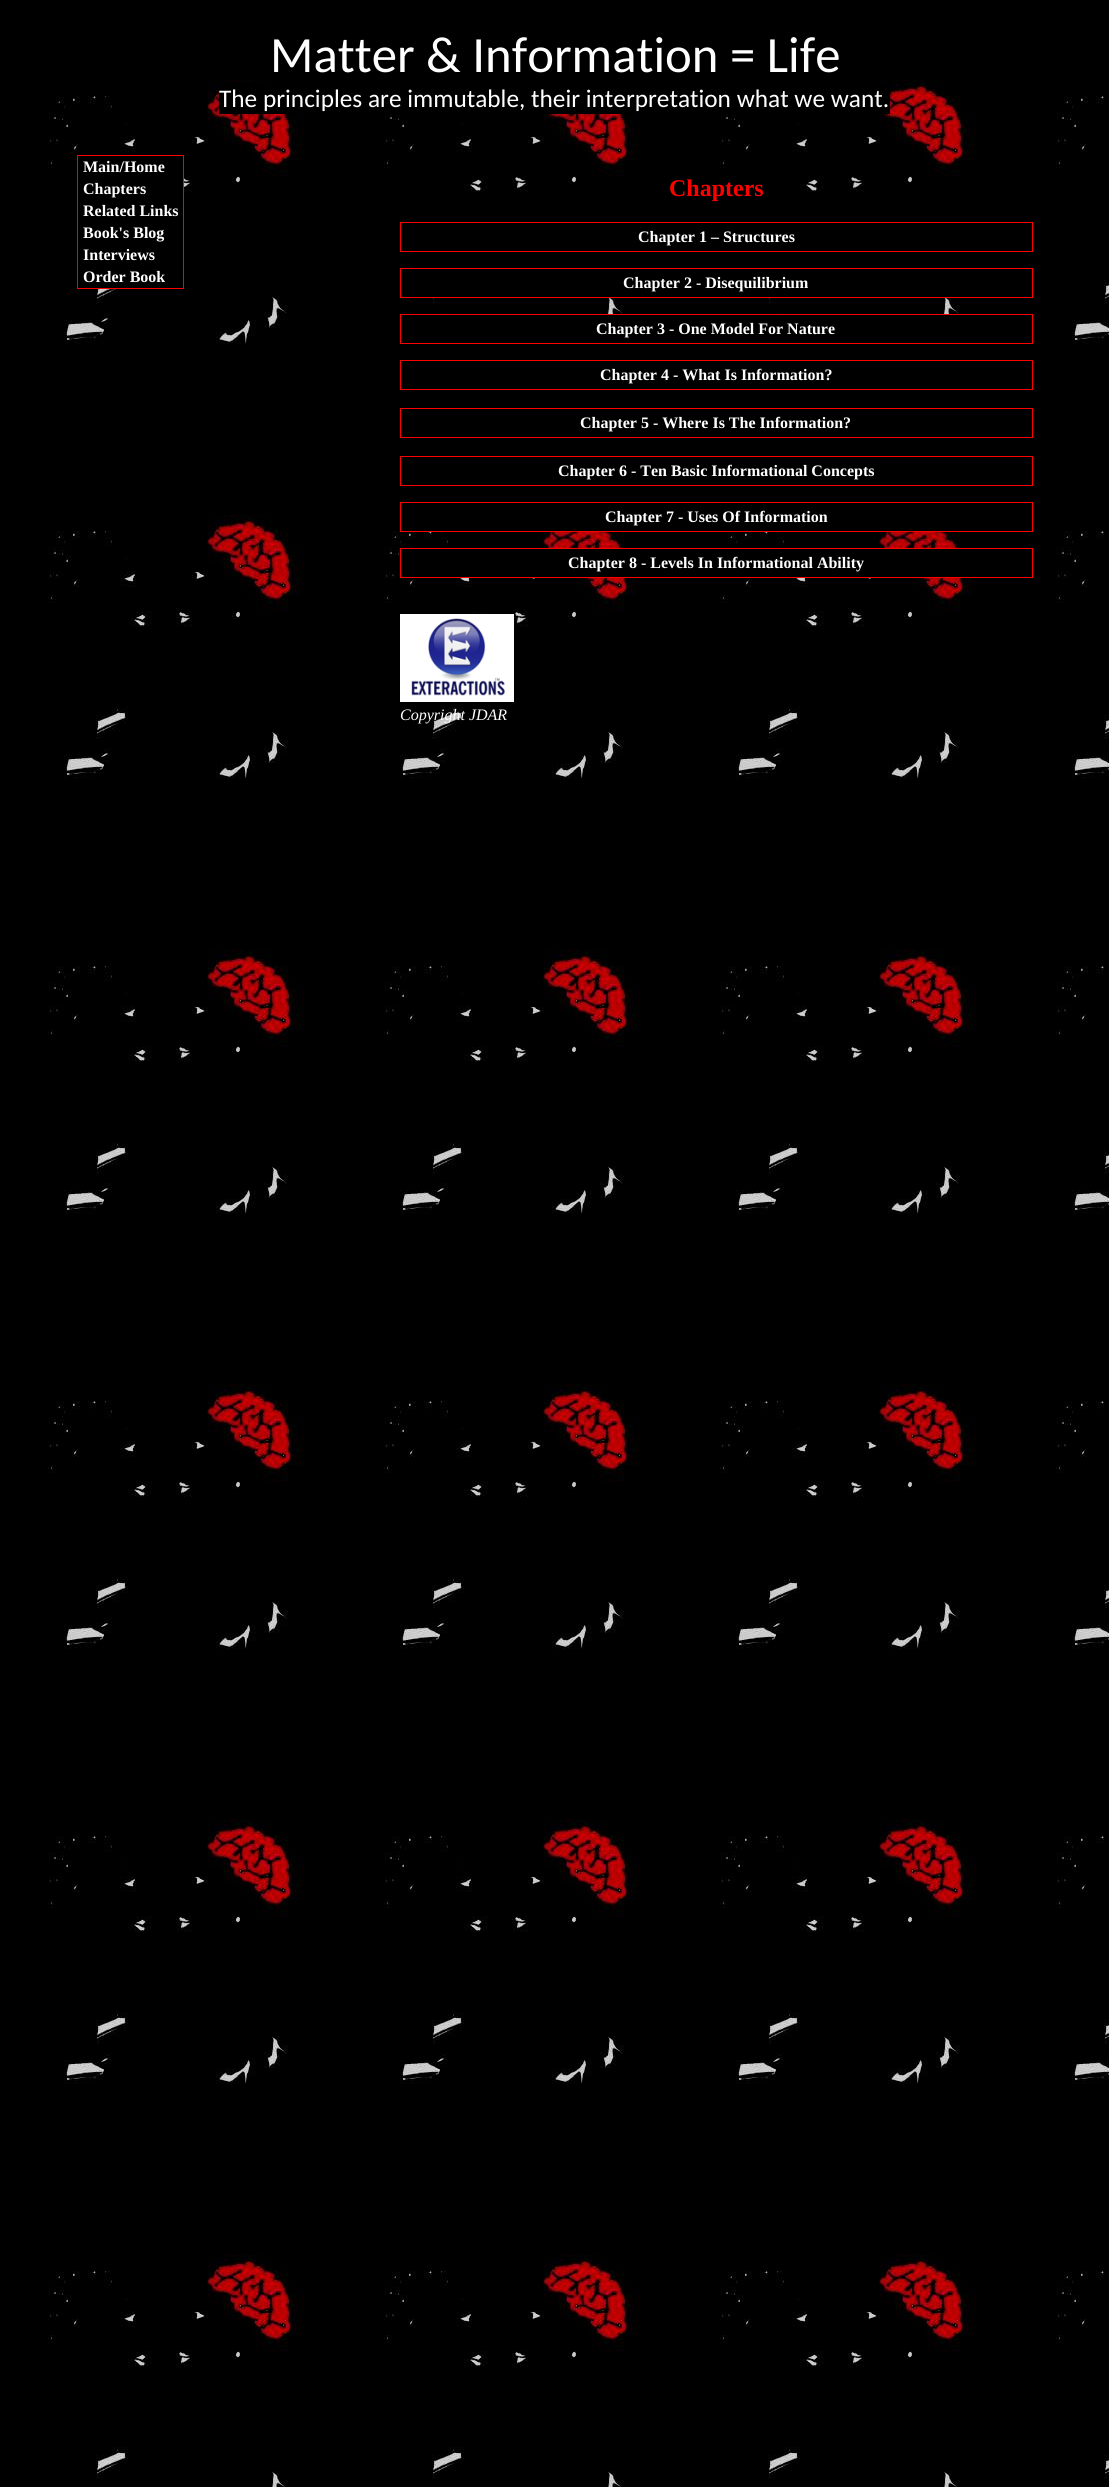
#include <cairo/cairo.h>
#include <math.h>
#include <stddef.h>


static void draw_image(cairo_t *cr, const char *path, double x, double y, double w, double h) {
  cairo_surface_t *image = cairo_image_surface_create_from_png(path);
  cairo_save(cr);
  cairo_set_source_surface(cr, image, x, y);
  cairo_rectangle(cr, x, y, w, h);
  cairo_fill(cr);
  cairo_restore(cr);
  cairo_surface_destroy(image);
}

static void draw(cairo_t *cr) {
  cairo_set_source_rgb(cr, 1, 1, 1);
  cairo_paint(cr);
  draw_image(cr, "images/1.png", 0, 0, 1109, 2487);
  cairo_set_source_rgb(cr, 0, 0, 0);
  cairo_rectangle(cr, 270, 79, 338, 4);
  cairo_fill(cr);
  cairo_rectangle(cr, 219, 83, 671, 31);
  cairo_fill(cr);
  cairo_rectangle(cr, 96, 176, 87, 112);
  cairo_fill(cr);
  cairo_rectangle(cr, 77.5, 155.5, 106, 133);
  cairo_set_source_rgb(cr, 1, 0, 0);
  cairo_set_line_width(cr, 1);
  cairo_stroke(cr);
  cairo_rectangle(cr, 400.5, 222.5, 632, 29);
  cairo_stroke(cr);
  cairo_set_source_rgb(cr, 0, 0, 0);
  cairo_rectangle(cr, 432, 272, 519, 25);
  cairo_fill(cr);
  cairo_rectangle(cr, 400.5, 268.5, 632, 29);
  cairo_set_source_rgb(cr, 1, 0, 0);
  cairo_stroke(cr);
  cairo_set_source_rgb(cr, 0, 0, 0);
  cairo_rectangle(cr, 401, 315, 559, 28);
  cairo_fill(cr);
  cairo_rectangle(cr, 400.5, 314.5, 632, 29);
  cairo_set_source_rgb(cr, 1, 0, 0);
  cairo_stroke(cr);
  cairo_rectangle(cr, 400.5, 360.5, 632, 29);
  cairo_stroke(cr);
  cairo_rectangle(cr, 400.5, 408.5, 632, 29);
  cairo_stroke(cr);
  cairo_rectangle(cr, 400.5, 456.5, 632, 29);
  cairo_stroke(cr);
  cairo_set_source_rgb(cr, 0, 0, 0);
  cairo_rectangle(cr, 544, 514, 405, 17);
  cairo_fill(cr);
  cairo_rectangle(cr, 400.5, 502.5, 632, 29);
  cairo_set_source_rgb(cr, 1, 0, 0);
  cairo_stroke(cr);
  cairo_set_source_rgb(cr, 0, 0, 0);
  cairo_rectangle(cr, 401, 549, 576, 28);
  cairo_fill(cr);
  cairo_rectangle(cr, 400.5, 548.5, 632, 29);
  cairo_set_source_rgb(cr, 1, 0, 0);
  cairo_stroke(cr);
  draw_image(cr, "images/2.png", 400, 614, 114, 88);
  cairo_select_font_face(cr, "Carlito", CAIRO_FONT_SLANT_NORMAL, CAIRO_FONT_WEIGHT_NORMAL);
  cairo_set_font_size(cr, 50.75);
  cairo_set_source_rgb(cr, 1, 1, 1);
  cairo_move_to(cr, 270, 72);
  cairo_show_text(cr, "Matter & Information = Life");
  cairo_set_font_size(cr, 25.3);
  cairo_move_to(cr, 219, 107);
  cairo_show_text(cr, "The principles are immutable, their interpretation what we want.");
  cairo_select_font_face(cr, "Liberation Serif", CAIRO_FONT_SLANT_NORMAL, CAIRO_FONT_WEIGHT_BOLD);
  cairo_set_font_size(cr, 16);
  cairo_move_to(cr, 83, 172);
  cairo_show_text(cr, "Main/Home");
  cairo_move_to(cr, 83, 194);
  cairo_show_text(cr, "Chapters");
  cairo_move_to(cr, 83, 216);
  cairo_show_text(cr, "Related Links");
  cairo_move_to(cr, 83, 238);
  cairo_show_text(cr, "Book's Blog");
  cairo_move_to(cr, 83, 260);
  cairo_show_text(cr, "Interviews");
  cairo_move_to(cr, 83, 282);
  cairo_show_text(cr, "Order Book");
  cairo_set_font_size(cr, 24);
  cairo_set_source_rgb(cr, 1, 0, 0);
  cairo_move_to(cr, 669, 196);
  cairo_show_text(cr, "Chapters");
  cairo_set_font_size(cr, 16);
  cairo_set_source_rgb(cr, 1, 1, 1);
  cairo_move_to(cr, 638, 242);
  cairo_show_text(cr, "Chapter 1 – Structures");
  cairo_move_to(cr, 623, 288);
  cairo_show_text(cr, "Chapter 2 - Disequilibrium");
  cairo_move_to(cr, 596, 334);
  cairo_show_text(cr, "Chapter 3 - One Model For Nature");
  cairo_move_to(cr, 600, 380);
  cairo_show_text(cr, "Chapter 4 - What Is Information?");
  cairo_move_to(cr, 580, 428);
  cairo_show_text(cr, "Chapter 5 - Where Is The Information?");
  cairo_move_to(cr, 558, 476);
  cairo_show_text(cr, "Chapter 6 - Ten Basic Informational Concepts");
  cairo_move_to(cr, 605, 522);
  cairo_show_text(cr, "Chapter 7 - Uses Of Information");
  cairo_move_to(cr, 568, 568);
  cairo_show_text(cr, "Chapter 8 - Levels In Informational Ability");
  cairo_select_font_face(cr, "Liberation Serif", CAIRO_FONT_SLANT_ITALIC, CAIRO_FONT_WEIGHT_NORMAL);
  cairo_move_to(cr, 400, 720);
  cairo_show_text(cr, "Copyright JDAR");
}

int main(void) {
  cairo_surface_t *surface = cairo_image_surface_create(CAIRO_FORMAT_RGB24, 1109, 2487);
  cairo_t *cr = cairo_create(surface);
  cairo_font_options_t *options = cairo_font_options_create();
  cairo_font_options_set_hint_metrics(options, CAIRO_HINT_METRICS_OFF);
  cairo_font_options_set_hint_style(options, CAIRO_HINT_STYLE_NONE);
  cairo_set_font_options(cr, options);
  cairo_set_miter_limit(cr, 4);
  draw(cr);
  cairo_surface_write_to_png(surface, "out.png");
  cairo_font_options_destroy(options);
  cairo_destroy(cr);
  cairo_surface_destroy(surface);
  return 0;
}
